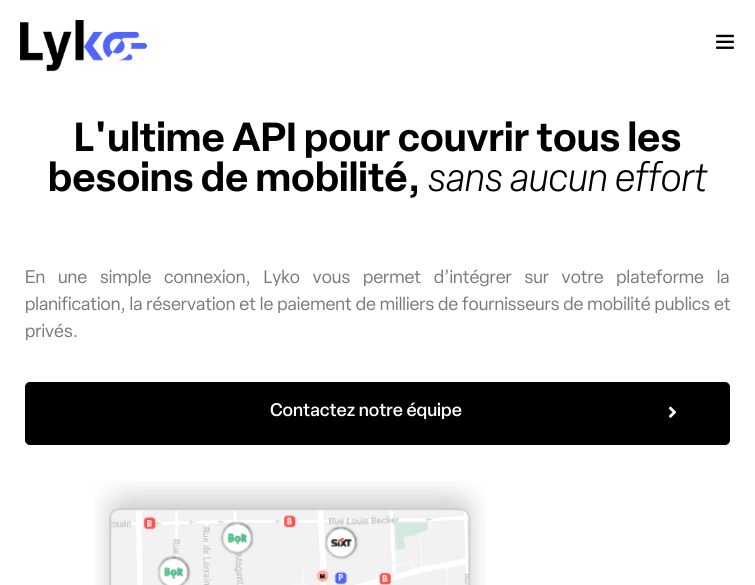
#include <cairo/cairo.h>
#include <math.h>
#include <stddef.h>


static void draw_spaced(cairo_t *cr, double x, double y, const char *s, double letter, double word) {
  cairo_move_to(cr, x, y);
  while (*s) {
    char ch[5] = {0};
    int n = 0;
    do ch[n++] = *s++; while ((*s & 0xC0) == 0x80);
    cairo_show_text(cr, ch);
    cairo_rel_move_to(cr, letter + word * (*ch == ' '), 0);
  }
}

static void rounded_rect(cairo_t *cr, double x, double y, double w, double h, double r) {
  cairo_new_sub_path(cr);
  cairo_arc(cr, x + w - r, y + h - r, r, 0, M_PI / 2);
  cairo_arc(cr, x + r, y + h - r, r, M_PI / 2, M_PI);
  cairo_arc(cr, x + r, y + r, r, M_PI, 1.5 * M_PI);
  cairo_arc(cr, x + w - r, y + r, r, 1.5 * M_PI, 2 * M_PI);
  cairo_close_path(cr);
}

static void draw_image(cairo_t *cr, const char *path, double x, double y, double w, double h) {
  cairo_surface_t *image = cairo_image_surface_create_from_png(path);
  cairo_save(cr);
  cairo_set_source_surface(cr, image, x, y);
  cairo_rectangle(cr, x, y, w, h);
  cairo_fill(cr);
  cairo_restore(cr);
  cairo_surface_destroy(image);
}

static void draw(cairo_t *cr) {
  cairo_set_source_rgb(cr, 1, 1, 1);
  cairo_paint(cr);
  draw_image(cr, "images/1.png", 20, 20, 127, 52);
  draw_image(cr, "images/2.png", 716, 34, 18, 15);
  cairo_set_source_rgb(cr, 0, 0, 0);
  rounded_rect(cr, 25.5, 382.5, 704, 62, 4.5);
  cairo_fill_preserve(cr);
  cairo_set_line_width(cr, 1);
  cairo_stroke(cr);
  draw_image(cr, "images/3.png", 668, 406, 9, 12);
  draw_image(cr, "images/4.png", 94, 481, 392, 104);
  cairo_select_font_face(cr, "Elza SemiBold", CAIRO_FONT_SLANT_NORMAL, CAIRO_FONT_WEIGHT_NORMAL);
  cairo_set_font_size(cr, 40);
  cairo_move_to(cr, 74, 151);
  cairo_show_text(cr, "L'ultime API pour couvrir tous les");
  cairo_move_to(cr, 48, 191);
  cairo_show_text(cr, "besoins de mobilité,");
  cairo_select_font_face(cr, "Elza Light", CAIRO_FONT_SLANT_ITALIC, CAIRO_FONT_WEIGHT_NORMAL);
  cairo_move_to(cr, 428, 191);
  cairo_show_text(cr, "sans aucun effort");
  cairo_select_font_face(cr, "Elza", CAIRO_FONT_SLANT_NORMAL, CAIRO_FONT_WEIGHT_NORMAL);
  cairo_set_font_size(cr, 18);
  cairo_set_source_rgb(cr, 121 / 255.0, 121 / 255.0, 121 / 255.0);
  draw_spaced(cr, 25, 283, "En une simple connexion, Lyko vous permet d’intégrer sur votre plateforme la", 0, 9.25);
  draw_spaced(cr, 25, 310, "planification, la réservation et le paiement de milliers de fournisseurs de mobilité publics et", 0, 0.4);
  cairo_move_to(cr, 25, 337);
  cairo_show_text(cr, "privés.");
  cairo_select_font_face(cr, "Elza Medium", CAIRO_FONT_SLANT_NORMAL, CAIRO_FONT_WEIGHT_NORMAL);
  cairo_set_source_rgb(cr, 1, 1, 1);
  cairo_move_to(cr, 270, 416);
  cairo_show_text(cr, "Contactez notre équipe");
}

int main(void) {
  cairo_surface_t *surface = cairo_image_surface_create(CAIRO_FORMAT_RGB24, 755, 585);
  cairo_t *cr = cairo_create(surface);
  cairo_font_options_t *options = cairo_font_options_create();
  cairo_font_options_set_hint_metrics(options, CAIRO_HINT_METRICS_OFF);
  cairo_font_options_set_hint_style(options, CAIRO_HINT_STYLE_NONE);
  cairo_set_font_options(cr, options);
  cairo_set_miter_limit(cr, 4);
  draw(cr);
  cairo_surface_write_to_png(surface, "out.png");
  cairo_font_options_destroy(options);
  cairo_destroy(cr);
  cairo_surface_destroy(surface);
  return 0;
}
